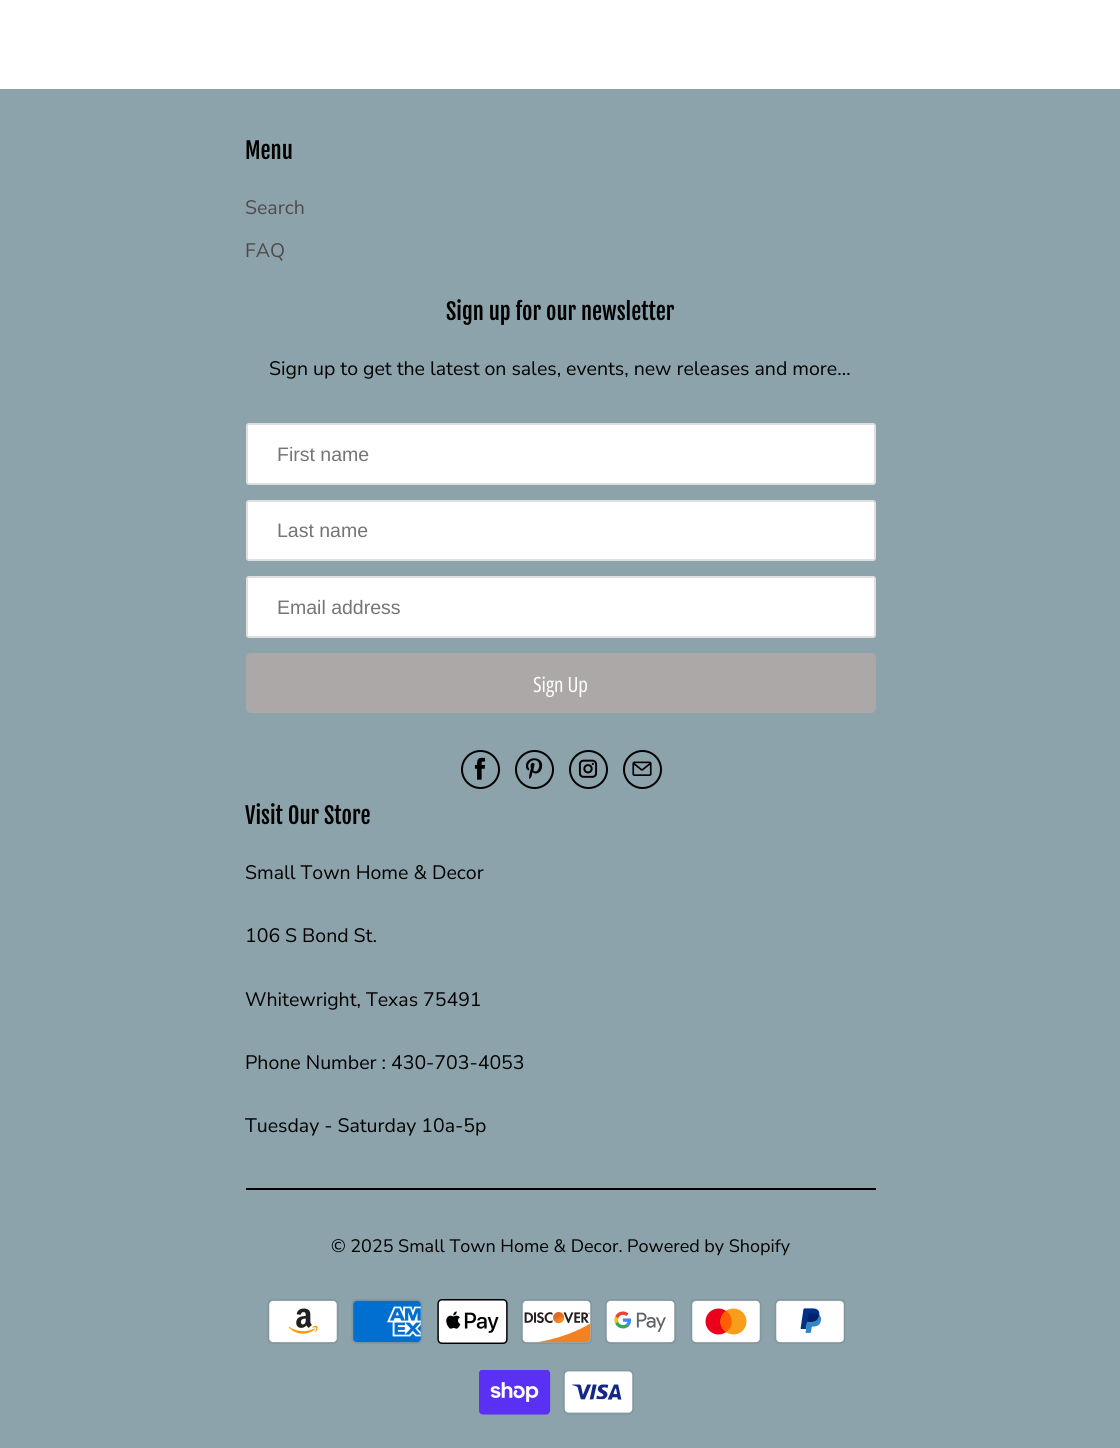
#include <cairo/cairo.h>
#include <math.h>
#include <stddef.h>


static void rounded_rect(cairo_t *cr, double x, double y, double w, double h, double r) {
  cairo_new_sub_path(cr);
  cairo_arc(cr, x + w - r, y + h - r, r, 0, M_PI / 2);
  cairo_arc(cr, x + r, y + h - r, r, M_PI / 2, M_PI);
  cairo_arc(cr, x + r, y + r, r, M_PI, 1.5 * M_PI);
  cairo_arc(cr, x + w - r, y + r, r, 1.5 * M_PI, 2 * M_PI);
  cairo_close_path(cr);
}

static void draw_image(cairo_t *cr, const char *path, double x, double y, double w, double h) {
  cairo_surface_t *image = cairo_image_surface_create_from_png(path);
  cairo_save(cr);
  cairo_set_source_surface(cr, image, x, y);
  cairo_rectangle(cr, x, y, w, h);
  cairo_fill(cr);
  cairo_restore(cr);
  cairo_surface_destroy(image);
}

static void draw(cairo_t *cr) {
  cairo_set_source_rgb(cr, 1, 1, 1);
  cairo_paint(cr);
  cairo_set_source_rgb(cr, 141 / 255.0, 163 / 255.0, 171 / 255.0);
  cairo_rectangle(cr, 0, 89, 1120, 1359);
  cairo_fill(cr);
  cairo_set_source_rgb(cr, 1, 1, 1);
  rounded_rect(cr, 247, 424, 628, 60, 2);
  cairo_fill_preserve(cr);
  cairo_set_source_rgb(cr, 223 / 255.0, 223 / 255.0, 223 / 255.0);
  cairo_stroke(cr);
  cairo_set_source_rgb(cr, 1, 1, 1);
  rounded_rect(cr, 247, 501, 628, 59, 2);
  cairo_fill_preserve(cr);
  cairo_set_source_rgb(cr, 223 / 255.0, 223 / 255.0, 223 / 255.0);
  cairo_stroke(cr);
  cairo_set_source_rgb(cr, 1, 1, 1);
  rounded_rect(cr, 247, 577, 628, 60, 2);
  cairo_fill_preserve(cr);
  cairo_set_source_rgb(cr, 223 / 255.0, 223 / 255.0, 223 / 255.0);
  cairo_stroke(cr);
  cairo_set_source_rgb(cr, 172 / 255.0, 168 / 255.0, 168 / 255.0);
  rounded_rect(cr, 247, 654, 628, 58, 4);
  cairo_fill_preserve(cr);
  cairo_stroke(cr);
  cairo_arc(cr, 480.5, 769.5, 18.5, 0, 2 * M_PI);
  cairo_set_source_rgb(cr, 0, 0, 0);
  cairo_stroke(cr);
  draw_image(cr, "images/1.png", 474, 757, 12, 23);
  cairo_arc(cr, 534.5, 769.5, 18.5, 0, 2 * M_PI);
  cairo_stroke(cr);
  draw_image(cr, "images/2.png", 525, 758, 18, 22);
  cairo_arc(cr, 588.5, 769.5, 18.5, 0, 2 * M_PI);
  cairo_stroke(cr);
  draw_image(cr, "images/3.png", 578, 759, 20, 19);
  cairo_arc(cr, 642.5, 769.5, 18.5, 0, 2 * M_PI);
  cairo_stroke(cr);
  draw_image(cr, "images/4.png", 632, 761, 20, 15);
  cairo_rectangle(cr, 246, 1188, 630, 2);
  cairo_fill(cr);
  draw_image(cr, "images/5.png", 267, 1299, 72, 45);
  draw_image(cr, "images/6.png", 351, 1299, 72, 45);
  draw_image(cr, "images/7.png", 437, 1299, 71, 45);
  draw_image(cr, "images/8.png", 521, 1299, 71, 45);
  draw_image(cr, "images/9.png", 605, 1299, 71, 45);
  draw_image(cr, "images/10.png", 690, 1299, 72, 45);
  draw_image(cr, "images/11.png", 774, 1299, 72, 45);
  draw_image(cr, "images/12.png", 479, 1370, 72, 45);
  draw_image(cr, "images/13.png", 563, 1370, 71, 45);
  cairo_select_font_face(cr, "Fjalla One", CAIRO_FONT_SLANT_NORMAL, CAIRO_FONT_WEIGHT_NORMAL);
  cairo_set_font_size(cr, 22.5);
  cairo_move_to(cr, 245, 159);
  cairo_show_text(cr, "Menu");
  cairo_select_font_face(cr, "Nunito Sans", CAIRO_FONT_SLANT_NORMAL, CAIRO_FONT_WEIGHT_NORMAL);
  cairo_set_font_size(cr, 19.5);
  cairo_set_source_rgb(cr, 77 / 255.0, 74 / 255.0, 74 / 255.0);
  cairo_move_to(cr, 245, 214);
  cairo_show_text(cr, "Search");
  cairo_move_to(cr, 245, 257);
  cairo_show_text(cr, "FAQ");
  cairo_select_font_face(cr, "Fjalla One", CAIRO_FONT_SLANT_NORMAL, CAIRO_FONT_WEIGHT_NORMAL);
  cairo_set_font_size(cr, 22.5);
  cairo_set_source_rgb(cr, 0, 0, 0);
  cairo_move_to(cr, 446, 320);
  cairo_show_text(cr, "Sign up for our newsletter");
  cairo_select_font_face(cr, "Nunito Sans", CAIRO_FONT_SLANT_NORMAL, CAIRO_FONT_WEIGHT_NORMAL);
  cairo_set_font_size(cr, 19.5);
  cairo_move_to(cr, 269, 375);
  cairo_show_text(cr, "Sign up to get the latest on sales, events, new releases and more…");
  cairo_select_font_face(cr, "Liberation Sans", CAIRO_FONT_SLANT_NORMAL, CAIRO_FONT_WEIGHT_NORMAL);
  cairo_set_source_rgb(cr, 117 / 255.0, 117 / 255.0, 117 / 255.0);
  cairo_move_to(cr, 277, 461);
  cairo_show_text(cr, "First name");
  cairo_move_to(cr, 277, 537);
  cairo_show_text(cr, "Last name");
  cairo_move_to(cr, 277, 614);
  cairo_show_text(cr, "Email address");
  cairo_select_font_face(cr, "Open Sans Condensed", CAIRO_FONT_SLANT_NORMAL, CAIRO_FONT_WEIGHT_NORMAL);
  cairo_set_font_size(cr, 21);
  cairo_set_source_rgb(cr, 1, 1, 1);
  cairo_move_to(cr, 533, 692);
  cairo_show_text(cr, "Sign Up");
  cairo_select_font_face(cr, "Fjalla One", CAIRO_FONT_SLANT_NORMAL, CAIRO_FONT_WEIGHT_NORMAL);
  cairo_set_font_size(cr, 22.5);
  cairo_set_source_rgb(cr, 0, 0, 0);
  cairo_move_to(cr, 245, 824);
  cairo_show_text(cr, "Visit Our Store");
  cairo_select_font_face(cr, "Nunito Sans", CAIRO_FONT_SLANT_NORMAL, CAIRO_FONT_WEIGHT_NORMAL);
  cairo_set_font_size(cr, 19.5);
  cairo_move_to(cr, 245, 879);
  cairo_show_text(cr, "Small Town Home & Decor");
  cairo_move_to(cr, 245, 942);
  cairo_show_text(cr, "106 S Bond St.");
  cairo_move_to(cr, 245, 1006);
  cairo_show_text(cr, "Whitewright, Texas 75491");
  cairo_move_to(cr, 245, 1069);
  cairo_show_text(cr, "Phone Number : 430-703-4053");
  cairo_move_to(cr, 245, 1132);
  cairo_show_text(cr, "Tuesday - Saturday 10a-5p");
  cairo_set_font_size(cr, 18);
  cairo_move_to(cr, 331, 1252);
  cairo_show_text(cr, "© 2025 Small Town Home & Decor. Powered by Shopify");
}

int main(void) {
  cairo_surface_t *surface = cairo_image_surface_create(CAIRO_FORMAT_RGB24, 1120, 1448);
  cairo_t *cr = cairo_create(surface);
  cairo_font_options_t *options = cairo_font_options_create();
  cairo_font_options_set_hint_metrics(options, CAIRO_HINT_METRICS_OFF);
  cairo_font_options_set_hint_style(options, CAIRO_HINT_STYLE_NONE);
  cairo_set_font_options(cr, options);
  cairo_set_miter_limit(cr, 4);
  draw(cr);
  cairo_surface_write_to_png(surface, "out.png");
  cairo_font_options_destroy(options);
  cairo_destroy(cr);
  cairo_surface_destroy(surface);
  return 0;
}
